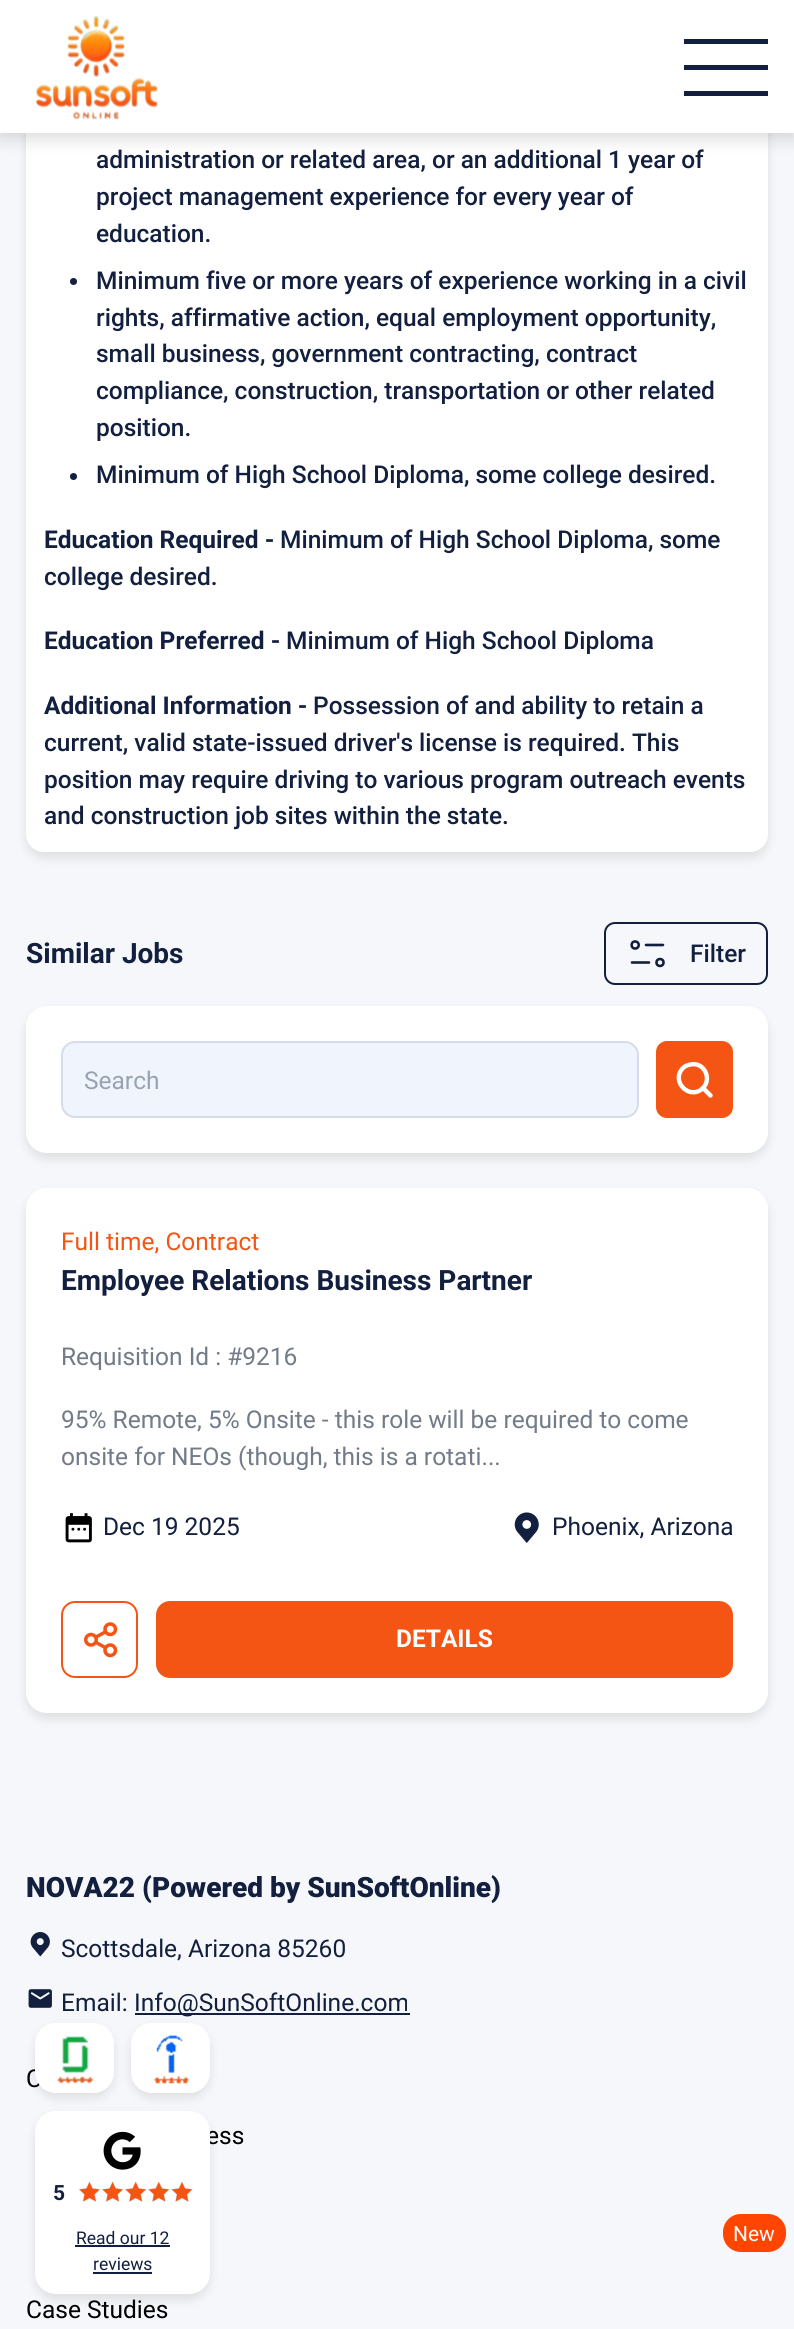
#include <cairo/cairo.h>
#include <math.h>
#include <stddef.h>


static void rounded_rect(cairo_t *cr, double x, double y, double w, double h, double r) {
  cairo_new_sub_path(cr);
  cairo_arc(cr, x + w - r, y + h - r, r, 0, M_PI / 2);
  cairo_arc(cr, x + r, y + h - r, r, M_PI / 2, M_PI);
  cairo_arc(cr, x + r, y + r, r, M_PI, 1.5 * M_PI);
  cairo_arc(cr, x + w - r, y + r, r, 1.5 * M_PI, 2 * M_PI);
  cairo_close_path(cr);
}

static void draw_shadow(cairo_t *cr, double x, double y, double w, double h, double r, double blur, double alpha) {
  cairo_push_group_with_content(cr, CAIRO_CONTENT_ALPHA);
  cairo_set_operator(cr, CAIRO_OPERATOR_SOURCE);
  for (int i = 15; i >= -15 && fmin(w, h) + blur * i / 3 > 0; i -= 2) {
    double e = blur * i / 6;
    cairo_set_source_rgba(cr, 0, 0, 0, alpha * erfc((i - 1) / 8.5) / 2);
    rounded_rect(cr, x - e, y - e, w + 2 * e, h + 2 * e, fmax(0, fmin(r + e + blur * .6, fmin(w, h) / 2 + e)));
    cairo_fill(cr);
  }
  cairo_pattern_t *soft = cairo_pop_group(cr);
  cairo_mask(cr, soft);
  cairo_pattern_destroy(soft);
}

static void draw_image(cairo_t *cr, const char *path, double x, double y, double w, double h) {
  cairo_surface_t *image = cairo_image_surface_create_from_png(path);
  cairo_save(cr);
  cairo_set_source_surface(cr, image, x, y);
  cairo_rectangle(cr, x, y, w, h);
  cairo_fill(cr);
  cairo_restore(cr);
  cairo_surface_destroy(image);
}

static void draw(cairo_t *cr) {
  cairo_set_source_rgb(cr, 245 / 255.0, 247 / 255.0, 250 / 255.0);
  cairo_paint(cr);
  cairo_set_source_rgb(cr, 0, 0, 0);
  draw_shadow(cr, 26, -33, 742, 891, 18, 5, 0.1);
  cairo_set_source_rgb(cr, 1, 1, 1);
  rounded_rect(cr, 26, -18, 742, 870, 18);
  cairo_fill(cr);
  cairo_set_source_rgb(cr, 0, 0, 0);
  draw_shadow(cr, 0, 5, 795, 133, 0, 9, 0.15);
  cairo_set_source_rgb(cr, 1, 1, 1);
  cairo_rectangle(cr, 0, 0, 794, 133);
  cairo_fill(cr);
  draw_image(cr, "images/1.png", 35, 15, 123, 105);
  cairo_set_source_rgb(cr, 18 / 255.0, 31 / 255.0, 62 / 255.0);
  cairo_rectangle(cr, 684, 39, 84, 5);
  cairo_fill(cr);
  cairo_rectangle(cr, 684, 65, 84, 5);
  cairo_fill(cr);
  cairo_rectangle(cr, 684, 91, 84, 5);
  cairo_fill(cr);
  cairo_arc(cr, 73.5, 281.5, 3.5, 0, 2 * M_PI);
  cairo_fill(cr);
  cairo_arc(cr, 73.5, 476.5, 3.5, 0, 2 * M_PI);
  cairo_fill(cr);
  rounded_rect(cr, 605, 923, 162, 61, 10);
  cairo_stroke(cr);
  cairo_new_path(cr);
  cairo_move_to(cr, 663, 945);
  cairo_line_to(cr, 646, 945);
  cairo_set_line_width(cr, 2.6);
  cairo_set_line_cap(cr, CAIRO_LINE_CAP_ROUND);
  cairo_set_line_join(cr, CAIRO_LINE_JOIN_ROUND);
  cairo_stroke(cr);
  cairo_new_path(cr);
  cairo_move_to(cr, 635, 941.5);
  cairo_curve_to(cr, 630.5, 941.5, 630.5, 948.5, 635, 948.5);
  cairo_curve_to(cr, 640, 948.5, 640, 941.5, 635, 941.5);
  cairo_close_path(cr);
  cairo_set_line_cap(cr, CAIRO_LINE_CAP_BUTT);
  cairo_set_line_join(cr, CAIRO_LINE_JOIN_MITER);
  cairo_stroke(cr);
  cairo_new_path(cr);
  cairo_move_to(cr, 632, 962.5);
  cairo_line_to(cr, 649, 962.5);
  cairo_set_line_cap(cr, CAIRO_LINE_CAP_ROUND);
  cairo_set_line_join(cr, CAIRO_LINE_JOIN_ROUND);
  cairo_stroke(cr);
  cairo_arc(cr, 660, 962.5, 3.5, 0, 2 * M_PI);
  cairo_set_line_cap(cr, CAIRO_LINE_CAP_BUTT);
  cairo_set_line_join(cr, CAIRO_LINE_JOIN_MITER);
  cairo_stroke(cr);
  cairo_set_source_rgb(cr, 0, 0, 0);
  draw_shadow(cr, 26, 1012, 742, 147, 21, 5, 0.1);
  cairo_set_source_rgb(cr, 1, 1, 1);
  rounded_rect(cr, 26, 1006, 742, 147, 21);
  cairo_fill(cr);
  cairo_set_source_rgb(cr, 240 / 255.0, 244 / 255.0, 253 / 255.0);
  rounded_rect(cr, 62, 1042, 576, 75, 13);
  cairo_fill_preserve(cr);
  cairo_set_source_rgb(cr, 212 / 255.0, 219 / 255.0, 234 / 255.0);
  cairo_set_line_width(cr, 2);
  cairo_stroke(cr);
  cairo_set_source_rgb(cr, 244 / 255.0, 85 / 255.0, 20 / 255.0);
  rounded_rect(cr, 656, 1041, 77, 77, 11);
  cairo_fill(cr);
  cairo_new_path(cr);
  cairo_move_to(cr, 710.5, 1095.5);
  cairo_line_to(cr, 703, 1088);
  cairo_move_to(cr, 703, 1088);
  cairo_curve_to(cr, 712.5, 1078, 703.5, 1061.5, 690.5, 1064.5);
  cairo_curve_to(cr, 687.5, 1065, 685, 1066, 683, 1068);
  cairo_curve_to(cr, 670, 1081.5, 690, 1101, 703, 1088);
  cairo_close_path(cr);
  cairo_set_source_rgb(cr, 1, 1, 1);
  cairo_set_line_width(cr, 4.4);
  cairo_set_line_cap(cr, CAIRO_LINE_CAP_ROUND);
  cairo_set_line_join(cr, CAIRO_LINE_JOIN_ROUND);
  cairo_stroke(cr);
  cairo_set_source_rgb(cr, 0, 0, 0);
  draw_shadow(cr, 26, 1194, 742, 525, 21, 5, 0.1);
  cairo_set_source_rgb(cr, 1, 1, 1);
  rounded_rect(cr, 26, 1188, 742, 525, 21);
  cairo_fill(cr);
  draw_image(cr, "images/2.png", 65, 1513, 27, 30);
  draw_image(cr, "images/3.png", 514, 1512, 25, 31);
  rounded_rect(cr, 62, 1602, 75, 75, 13);
  cairo_set_source_rgb(cr, 244 / 255.0, 85 / 255.0, 20 / 255.0);
  cairo_set_line_width(cr, 2);
  cairo_set_line_cap(cr, CAIRO_LINE_CAP_BUTT);
  cairo_set_line_join(cr, CAIRO_LINE_JOIN_MITER);
  cairo_stroke(cr);
  draw_image(cr, "images/4.png", 84, 1622, 34, 36);
  rounded_rect(cr, 157, 1602, 575, 75, 13);
  cairo_fill_preserve(cr);
  cairo_stroke(cr);
  draw_image(cr, "images/5.png", 30, 1932, 20, 25);
  draw_image(cr, "images/6.png", 28, 1989, 24, 19);
  cairo_set_source_rgb(cr, 18 / 255.0, 31 / 255.0, 62 / 255.0);
  cairo_rectangle(cr, 135, 2013, 275, 2);
  cairo_fill(cr);
  cairo_set_source_rgb(cr, 1, 69 / 255.0, 0);
  rounded_rect(cr, 723, 2214, 63, 38, 18);
  cairo_fill(cr);
  cairo_set_source_rgb(cr, 0, 0, 0);
  draw_shadow(cr, 35, 2028, 79, 70, 21, 5, 0.1);
  draw_shadow(cr, 131, 2028, 79, 70, 21, 5, 0.1);
  cairo_set_source_rgb(cr, 1, 1, 1);
  rounded_rect(cr, 131, 2023, 79, 70, 21);
  cairo_fill(cr);
  draw_image(cr, "images/8.png", 154, 2034, 36, 50);
  cairo_set_source_rgb(cr, 0, 0, 0);
  draw_shadow(cr, 35, 2116, 175, 184, 21, 5, 0.1);
  cairo_select_font_face(cr, "Roboto Medium", CAIRO_FONT_SLANT_NORMAL, CAIRO_FONT_WEIGHT_NORMAL);
  cairo_set_font_size(cr, 24.5);
  cairo_set_source_rgb(cr, 18 / 255.0, 31 / 255.0, 62 / 255.0);
  cairo_move_to(cr, 96, 168);
  cairo_show_text(cr, "administration or related area, or an additional 1 year of");
  cairo_move_to(cr, 96, 205);
  cairo_show_text(cr, "project management experience for every year of");
  cairo_move_to(cr, 96, 242);
  cairo_show_text(cr, "education.");
  cairo_move_to(cr, 96, 289);
  cairo_show_text(cr, "Minimum five or more years of experience working in a civil");
  cairo_move_to(cr, 96, 326);
  cairo_show_text(cr, "rights, affirmative action, equal employment opportunity,");
  cairo_move_to(cr, 96, 362);
  cairo_show_text(cr, "small business, government contracting, contract");
  cairo_move_to(cr, 96, 399);
  cairo_show_text(cr, "compliance, construction, transportation or other related");
  cairo_move_to(cr, 96, 436);
  cairo_show_text(cr, "position.");
  cairo_move_to(cr, 96, 483);
  cairo_show_text(cr, "Minimum of High School Diploma, some college desired.");
  cairo_select_font_face(cr, "Roboto", CAIRO_FONT_SLANT_NORMAL, CAIRO_FONT_WEIGHT_BOLD);
  cairo_move_to(cr, 44, 548);
  cairo_show_text(cr, "Education Required -");
  cairo_select_font_face(cr, "Roboto Medium", CAIRO_FONT_SLANT_NORMAL, CAIRO_FONT_WEIGHT_NORMAL);
  cairo_move_to(cr, 280, 548);
  cairo_show_text(cr, "Minimum of High School Diploma, some");
  cairo_move_to(cr, 44, 585);
  cairo_show_text(cr, "college desired.");
  cairo_select_font_face(cr, "Roboto", CAIRO_FONT_SLANT_NORMAL, CAIRO_FONT_WEIGHT_BOLD);
  cairo_move_to(cr, 44, 649);
  cairo_show_text(cr, "Education Preferred -");
  cairo_select_font_face(cr, "Roboto Medium", CAIRO_FONT_SLANT_NORMAL, CAIRO_FONT_WEIGHT_NORMAL);
  cairo_move_to(cr, 286, 649);
  cairo_show_text(cr, "Minimum of High School Diploma");
  cairo_select_font_face(cr, "Roboto", CAIRO_FONT_SLANT_NORMAL, CAIRO_FONT_WEIGHT_BOLD);
  cairo_move_to(cr, 44, 714);
  cairo_show_text(cr, "Additional Information -");
  cairo_select_font_face(cr, "Roboto Medium", CAIRO_FONT_SLANT_NORMAL, CAIRO_FONT_WEIGHT_NORMAL);
  cairo_move_to(cr, 313, 714);
  cairo_show_text(cr, "Possession of and ability to retain a");
  cairo_move_to(cr, 44, 751);
  cairo_show_text(cr, "current, valid state-issued driver's license is required. This");
  cairo_move_to(cr, 44, 788);
  cairo_show_text(cr, "position may require driving to various program outreach events");
  cairo_move_to(cr, 44, 824);
  cairo_show_text(cr, "and construction job sites within the state.");
  cairo_select_font_face(cr, "Roboto", CAIRO_FONT_SLANT_NORMAL, CAIRO_FONT_WEIGHT_BOLD);
  cairo_set_font_size(cr, 28);
  cairo_move_to(cr, 26, 963);
  cairo_show_text(cr, "Similar Jobs");
  cairo_select_font_face(cr, "Roboto Medium", CAIRO_FONT_SLANT_NORMAL, CAIRO_FONT_WEIGHT_NORMAL);
  cairo_set_font_size(cr, 24.5);
  cairo_move_to(cr, 690, 962);
  cairo_show_text(cr, "Filter");
  cairo_select_font_face(cr, "Roboto", CAIRO_FONT_SLANT_NORMAL, CAIRO_FONT_WEIGHT_NORMAL);
  cairo_set_source_rgb(cr, 152 / 255.0, 162 / 255.0, 179 / 255.0);
  cairo_move_to(cr, 84, 1089);
  cairo_show_text(cr, "Search");
  cairo_set_source_rgb(cr, 244 / 255.0, 85 / 255.0, 20 / 255.0);
  cairo_move_to(cr, 61, 1250);
  cairo_show_text(cr, "Full time, Contract");
  cairo_select_font_face(cr, "Roboto", CAIRO_FONT_SLANT_NORMAL, CAIRO_FONT_WEIGHT_BOLD);
  cairo_set_font_size(cr, 28);
  cairo_set_source_rgb(cr, 18 / 255.0, 31 / 255.0, 62 / 255.0);
  cairo_move_to(cr, 61, 1290);
  cairo_show_text(cr, "Employee Relations Business Partner");
  cairo_select_font_face(cr, "Roboto", CAIRO_FONT_SLANT_NORMAL, CAIRO_FONT_WEIGHT_NORMAL);
  cairo_set_font_size(cr, 24.5);
  cairo_set_source_rgb(cr, 114 / 255.0, 123 / 255.0, 136 / 255.0);
  cairo_move_to(cr, 61, 1365);
  cairo_show_text(cr, "Requisition Id : #9216");
  cairo_move_to(cr, 61, 1428);
  cairo_show_text(cr, "95% Remote, 5% Onsite - this role will be required to come");
  cairo_move_to(cr, 61, 1465);
  cairo_show_text(cr, "onsite for NEOs (though, this is a rotati...");
  cairo_set_source_rgb(cr, 18 / 255.0, 31 / 255.0, 62 / 255.0);
  cairo_move_to(cr, 103, 1535);
  cairo_show_text(cr, "Dec 19 2025");
  cairo_move_to(cr, 552, 1535);
  cairo_show_text(cr, "Phoenix, Arizona");
  cairo_select_font_face(cr, "Roboto", CAIRO_FONT_SLANT_NORMAL, CAIRO_FONT_WEIGHT_BOLD);
  cairo_set_source_rgb(cr, 1, 1, 1);
  cairo_move_to(cr, 396, 1647);
  cairo_show_text(cr, "DETAILS");
  cairo_select_font_face(cr, "Roboto Black", CAIRO_FONT_SLANT_NORMAL, CAIRO_FONT_WEIGHT_NORMAL);
  cairo_set_font_size(cr, 28);
  cairo_set_source_rgb(cr, 18 / 255.0, 31 / 255.0, 62 / 255.0);
  cairo_move_to(cr, 26, 1897);
  cairo_show_text(cr, "NOVA22 (Powered by SunSoftOnline)");
  cairo_select_font_face(cr, "Roboto", CAIRO_FONT_SLANT_NORMAL, CAIRO_FONT_WEIGHT_NORMAL);
  cairo_set_font_size(cr, 24.5);
  cairo_move_to(cr, 61, 1957);
  cairo_show_text(cr, "Scottsdale, Arizona 85260");
  cairo_move_to(cr, 61, 2011);
  cairo_show_text(cr, "Email:");
  cairo_move_to(cr, 134, 2011);
  cairo_show_text(cr, "Info@SunSoftOnline.com");
  cairo_set_source_rgb(cr, 0, 0, 0);
  cairo_move_to(cr, 26, 2087);
  cairo_show_text(cr, "C");
  cairo_move_to(cr, 206, 2144);
  cairo_show_text(cr, "ess");
  cairo_set_font_size(cr, 21);
  cairo_set_source_rgb(cr, 1, 1, 1);
  cairo_move_to(cr, 733, 2241);
  cairo_show_text(cr, "New");
  cairo_set_font_size(cr, 24.5);
  cairo_set_source_rgb(cr, 0, 0, 0);
  cairo_move_to(cr, 26, 2318);
  cairo_show_text(cr, "Case Studies");
  cairo_set_source_rgb(cr, 1, 1, 1);
  rounded_rect(cr, 35, 2023, 79, 70, 21);
  cairo_fill(cr);
  draw_image(cr, "images/7.png", 57, 2036, 37, 48);
  rounded_rect(cr, 35, 2111, 175, 183, 21);
  cairo_fill(cr);
  draw_image(cr, "images/9.png", 103, 2131, 38, 39);
  cairo_select_font_face(cr, "Roboto", CAIRO_FONT_SLANT_NORMAL, CAIRO_FONT_WEIGHT_BOLD);
  cairo_set_font_size(cr, 21);
  cairo_set_source_rgb(cr, 18 / 255.0, 31 / 255.0, 62 / 255.0);
  cairo_move_to(cr, 53, 2200);
  cairo_show_text(cr, "5");
  draw_image(cr, "images/10.png", 79, 2181, 114, 21);
  draw_image(cr, "images/11.png", 79, 2182, 113, 20);
  cairo_select_font_face(cr, "Roboto", CAIRO_FONT_SLANT_NORMAL, CAIRO_FONT_WEIGHT_NORMAL);
  cairo_set_font_size(cr, 17.5);
  cairo_move_to(cr, 76, 2244);
  cairo_show_text(cr, "Read our 12");
  cairo_rectangle(cr, 75, 2245, 95, 2);
  cairo_fill(cr);
  cairo_move_to(cr, 93, 2270);
  cairo_show_text(cr, "reviews");
  cairo_rectangle(cr, 93, 2272, 59, 2);
  cairo_fill(cr);
}

int main(void) {
  cairo_surface_t *surface = cairo_image_surface_create(CAIRO_FORMAT_RGB24, 794, 2329);
  cairo_t *cr = cairo_create(surface);
  cairo_font_options_t *options = cairo_font_options_create();
  cairo_font_options_set_hint_metrics(options, CAIRO_HINT_METRICS_OFF);
  cairo_font_options_set_hint_style(options, CAIRO_HINT_STYLE_NONE);
  cairo_set_font_options(cr, options);
  cairo_set_miter_limit(cr, 4);
  draw(cr);
  cairo_surface_write_to_png(surface, "out.png");
  cairo_font_options_destroy(options);
  cairo_destroy(cr);
  cairo_surface_destroy(surface);
  return 0;
}
